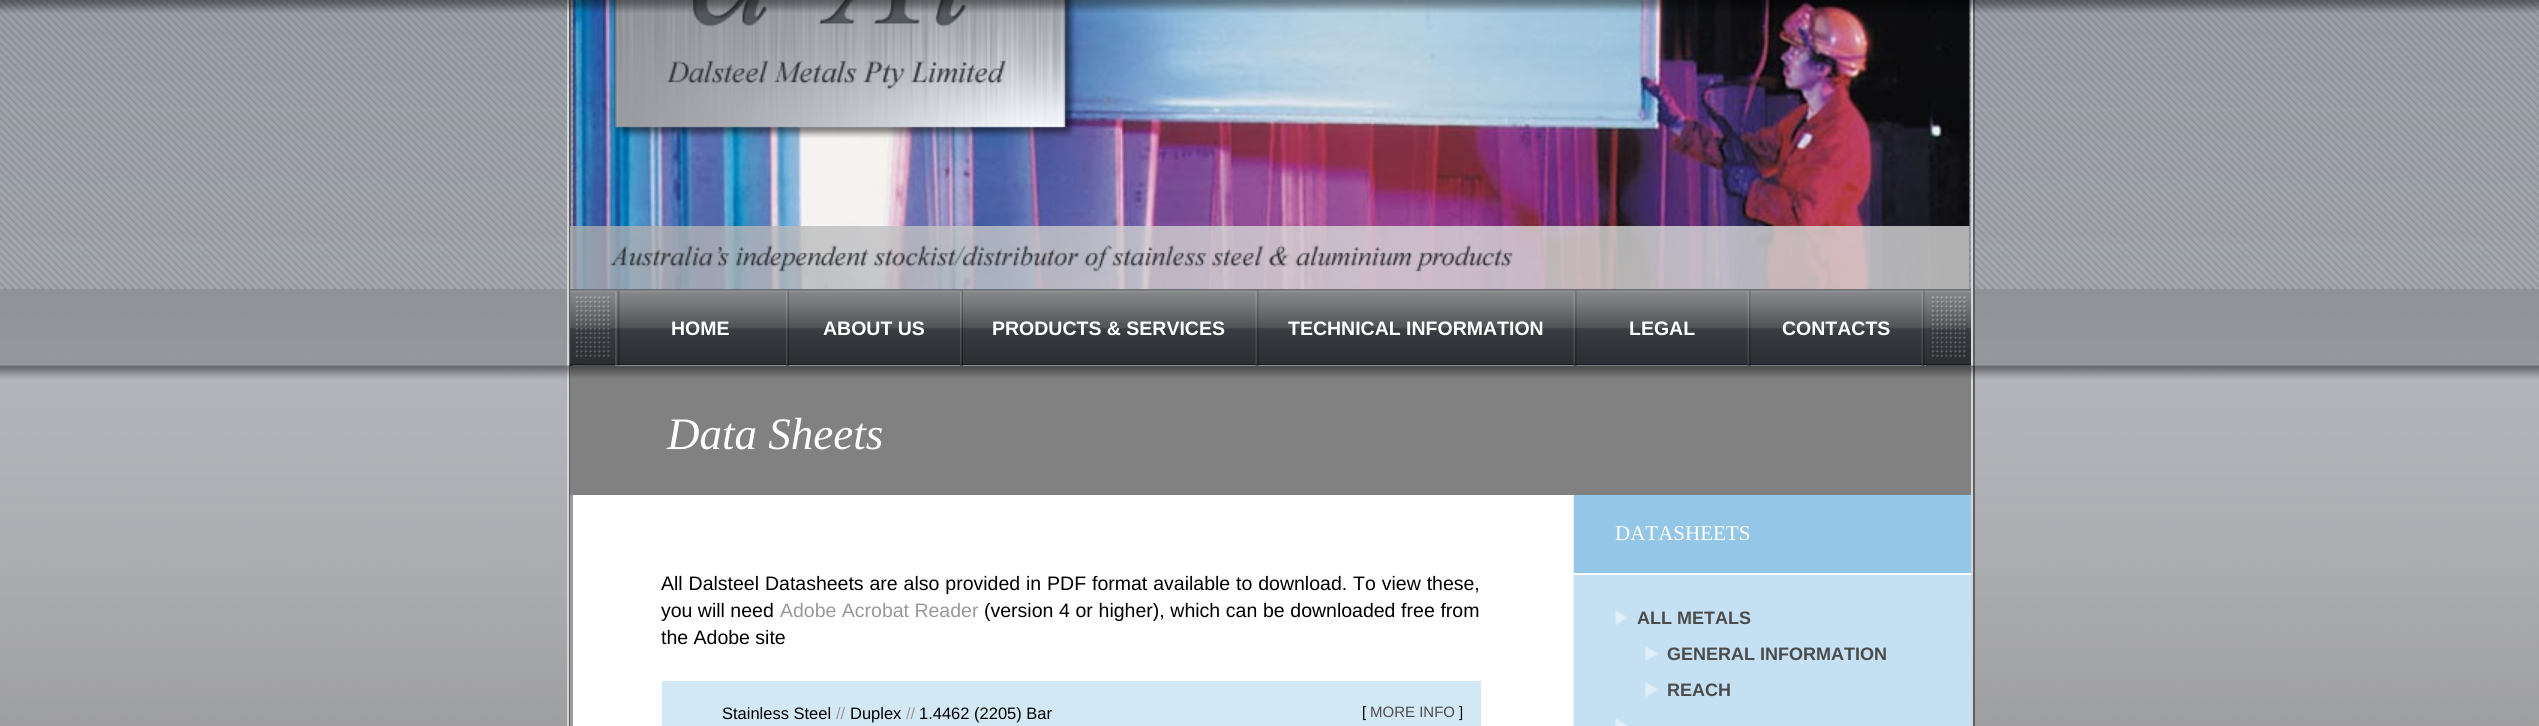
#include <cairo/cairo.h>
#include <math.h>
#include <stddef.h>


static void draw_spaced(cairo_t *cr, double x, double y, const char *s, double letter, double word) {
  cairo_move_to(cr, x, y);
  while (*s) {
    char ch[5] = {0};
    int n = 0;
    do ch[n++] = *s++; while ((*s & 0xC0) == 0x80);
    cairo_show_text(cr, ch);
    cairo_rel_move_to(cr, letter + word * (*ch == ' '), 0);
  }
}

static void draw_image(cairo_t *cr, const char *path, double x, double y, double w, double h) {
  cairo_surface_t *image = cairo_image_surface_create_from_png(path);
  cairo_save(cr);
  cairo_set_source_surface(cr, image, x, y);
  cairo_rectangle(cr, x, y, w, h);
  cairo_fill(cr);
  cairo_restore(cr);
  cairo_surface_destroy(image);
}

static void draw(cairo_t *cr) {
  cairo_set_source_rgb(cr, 1, 1, 1);
  cairo_paint(cr);
  draw_image(cr, "images/1.png", 0, 0, 2539, 726);
  cairo_set_source_rgb(cr, 96 / 255.0, 96 / 255.0, 96 / 255.0);
  cairo_rectangle(cr, 1973, 0, 2, 726);
  cairo_fill(cr);
  cairo_set_source_rgb(cr, 212 / 255.0, 214 / 255.0, 218 / 255.0);
  cairo_rectangle(cr, 567, 0, 2, 726);
  cairo_fill(cr);
  cairo_rectangle(cr, 1971, 0, 2, 726);
  cairo_fill(cr);
  cairo_set_source_rgb(cr, 96 / 255.0, 96 / 255.0, 96 / 255.0);
  cairo_rectangle(cr, 569, 0, 2, 726);
  cairo_fill(cr);
  draw_image(cr, "images/3.png", 571, 0, 1399, 289);
  draw_image(cr, "images/5.png", 615, 0, 461, 138);
  draw_image(cr, "images/2.png", 0, 0, 2539, 13);
  draw_image(cr, "images/4.png", 570, 226, 1400, 63);
  draw_image(cr, "images/6.png", 570, 289, 1401, 77);
  draw_image(cr, "images/8.png", 615, 290, 5, 76);
  draw_image(cr, "images/14.png", 573, 365, 1398, 361);
  draw_image(cr, "images/7.png", 570, 296, 45, 70);
  draw_image(cr, "images/9.png", 786, 290, 3, 76);
  draw_image(cr, "images/9.png", 960, 290, 3, 76);
  draw_image(cr, "images/10.png", 1255, 290, 4, 76);
  draw_image(cr, "images/11.png", 1573, 290, 4, 76);
  draw_image(cr, "images/12.png", 1747, 290, 4, 76);
  draw_image(cr, "images/12.png", 1921, 290, 4, 76);
  draw_image(cr, "images/13.png", 1926, 296, 45, 70);
  cairo_set_source_rgb(cr, 158 / 255.0, 158 / 255.0, 159 / 255.0);
  cairo_rectangle(cr, 570, 495, 3, 231);
  cairo_fill(cr);
  cairo_set_source_rgb(cr, 129 / 255.0, 129 / 255.0, 129 / 255.0);
  cairo_rectangle(cr, 570, 366, 1401, 129);
  cairo_fill(cr);
  cairo_set_source_rgb(cr, 211 / 255.0, 232 / 255.0, 245 / 255.0);
  cairo_rectangle(cr, 662, 681, 819, 45);
  cairo_fill(cr);
  cairo_set_source_rgb(cr, 148 / 255.0, 199 / 255.0, 231 / 255.0);
  cairo_rectangle(cr, 1574, 495, 397, 78);
  cairo_fill(cr);
  cairo_set_source_rgb(cr, 1, 1, 1);
  cairo_rectangle(cr, 1574, 573, 397, 2);
  cairo_fill(cr);
  draw_image(cr, "images/15.png", 1615, 610, 13, 15);
  draw_image(cr, "images/15.png", 1645, 646, 13, 15);
  draw_image(cr, "images/15.png", 1645, 682, 13, 15);
  draw_image(cr, "images/16.png", 1615, 718, 13, 8);
  draw_image(cr, "images/17.png", 0, 365, 2539, 14);
  cairo_select_font_face(cr, "Liberation Sans", CAIRO_FONT_SLANT_NORMAL, CAIRO_FONT_WEIGHT_BOLD);
  cairo_set_font_size(cr, 19.5);
  cairo_move_to(cr, 671, 335);
  cairo_show_text(cr, "HOME");
  cairo_move_to(cr, 823, 335);
  cairo_show_text(cr, "ABOUT US");
  cairo_move_to(cr, 992, 335);
  cairo_show_text(cr, "PRODUCTS & SERVICES");
  cairo_move_to(cr, 1288, 335);
  cairo_show_text(cr, "TECHNICAL INFORMATION");
  cairo_move_to(cr, 1629, 335);
  cairo_show_text(cr, "LEGAL");
  cairo_move_to(cr, 1782, 335);
  cairo_show_text(cr, "CONTACTS");
  cairo_select_font_face(cr, "Liberation Serif", CAIRO_FONT_SLANT_ITALIC, CAIRO_FONT_WEIGHT_NORMAL);
  cairo_set_font_size(cr, 45);
  cairo_move_to(cr, 667, 449);
  cairo_show_text(cr, "Data Sheets");
  cairo_select_font_face(cr, "Liberation Sans", CAIRO_FONT_SLANT_NORMAL, CAIRO_FONT_WEIGHT_NORMAL);
  cairo_set_font_size(cr, 19.5);
  cairo_set_source_rgb(cr, 0, 0, 0);
  draw_spaced(cr, 661, 590, "All Dalsteel Datasheets are also provided in PDF format available to download. To view these,", 0, 0.5);
  cairo_move_to(cr, 661, 617);
  cairo_show_text(cr, "you will need");
  cairo_set_source_rgb(cr, 153 / 255.0, 153 / 255.0, 153 / 255.0);
  cairo_move_to(cr, 780, 617);
  cairo_show_text(cr, "Adobe Acrobat Reader");
  cairo_set_source_rgb(cr, 0, 0, 0);
  draw_spaced(cr, 984, 617, "(version 4 or higher), which can be downloaded free from", 0, 0.25);
  cairo_move_to(cr, 661, 644);
  cairo_show_text(cr, "the Adobe site");
  cairo_set_font_size(cr, 16.5);
  cairo_move_to(cr, 722, 719);
  cairo_show_text(cr, "Stainless Steel");
  cairo_set_source_rgb(cr, 153 / 255.0, 153 / 255.0, 153 / 255.0);
  cairo_move_to(cr, 836, 719);
  cairo_show_text(cr, "//");
  cairo_set_source_rgb(cr, 0, 0, 0);
  cairo_move_to(cr, 850, 719);
  cairo_show_text(cr, "Duplex");
  cairo_set_source_rgb(cr, 153 / 255.0, 153 / 255.0, 153 / 255.0);
  cairo_move_to(cr, 906, 719);
  cairo_show_text(cr, "//");
  cairo_set_source_rgb(cr, 0, 0, 0);
  cairo_move_to(cr, 919, 719);
  cairo_show_text(cr, "1.4462 (2205) Bar");
  cairo_set_font_size(cr, 15);
  cairo_move_to(cr, 1362, 717);
  cairo_show_text(cr, "[");
  cairo_set_source_rgb(cr, 75 / 255.0, 75 / 255.0, 75 / 255.0);
  cairo_move_to(cr, 1370, 717);
  cairo_show_text(cr, "MORE INFO");
  cairo_set_source_rgb(cr, 0, 0, 0);
  cairo_move_to(cr, 1459, 717);
  cairo_show_text(cr, "]");
  cairo_select_font_face(cr, "Liberation Serif", CAIRO_FONT_SLANT_NORMAL, CAIRO_FONT_WEIGHT_NORMAL);
  cairo_set_font_size(cr, 21);
  cairo_set_source_rgb(cr, 1, 1, 1);
  cairo_move_to(cr, 1615, 540);
  cairo_show_text(cr, "DATASHEETS");
  cairo_select_font_face(cr, "Liberation Sans", CAIRO_FONT_SLANT_NORMAL, CAIRO_FONT_WEIGHT_BOLD);
  cairo_set_font_size(cr, 18);
  cairo_set_source_rgb(cr, 75 / 255.0, 75 / 255.0, 75 / 255.0);
  cairo_move_to(cr, 1637, 624);
  cairo_show_text(cr, "ALL METALS");
  cairo_move_to(cr, 1667, 660);
  cairo_show_text(cr, "GENERAL INFORMATION");
  cairo_move_to(cr, 1667, 696);
  cairo_show_text(cr, "REACH");
}

int main(void) {
  cairo_surface_t *surface = cairo_image_surface_create(CAIRO_FORMAT_RGB24, 2539, 726);
  cairo_t *cr = cairo_create(surface);
  cairo_font_options_t *options = cairo_font_options_create();
  cairo_font_options_set_hint_metrics(options, CAIRO_HINT_METRICS_OFF);
  cairo_font_options_set_hint_style(options, CAIRO_HINT_STYLE_NONE);
  cairo_set_font_options(cr, options);
  cairo_set_miter_limit(cr, 4);
  draw(cr);
  cairo_surface_write_to_png(surface, "out.png");
  cairo_font_options_destroy(options);
  cairo_destroy(cr);
  cairo_surface_destroy(surface);
  return 0;
}
